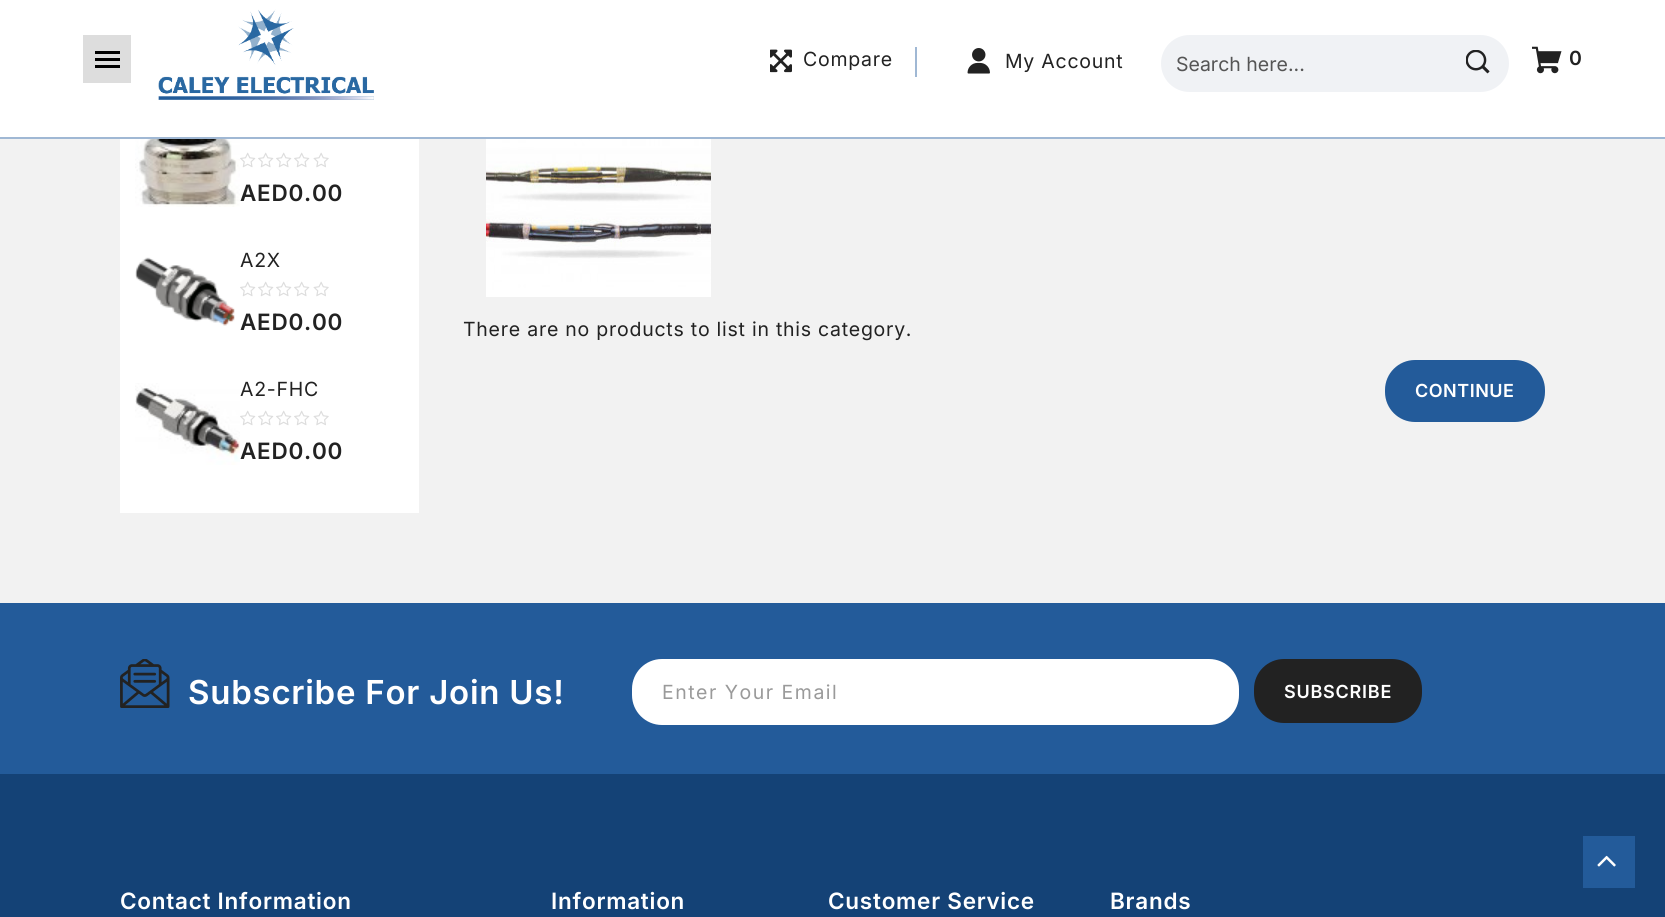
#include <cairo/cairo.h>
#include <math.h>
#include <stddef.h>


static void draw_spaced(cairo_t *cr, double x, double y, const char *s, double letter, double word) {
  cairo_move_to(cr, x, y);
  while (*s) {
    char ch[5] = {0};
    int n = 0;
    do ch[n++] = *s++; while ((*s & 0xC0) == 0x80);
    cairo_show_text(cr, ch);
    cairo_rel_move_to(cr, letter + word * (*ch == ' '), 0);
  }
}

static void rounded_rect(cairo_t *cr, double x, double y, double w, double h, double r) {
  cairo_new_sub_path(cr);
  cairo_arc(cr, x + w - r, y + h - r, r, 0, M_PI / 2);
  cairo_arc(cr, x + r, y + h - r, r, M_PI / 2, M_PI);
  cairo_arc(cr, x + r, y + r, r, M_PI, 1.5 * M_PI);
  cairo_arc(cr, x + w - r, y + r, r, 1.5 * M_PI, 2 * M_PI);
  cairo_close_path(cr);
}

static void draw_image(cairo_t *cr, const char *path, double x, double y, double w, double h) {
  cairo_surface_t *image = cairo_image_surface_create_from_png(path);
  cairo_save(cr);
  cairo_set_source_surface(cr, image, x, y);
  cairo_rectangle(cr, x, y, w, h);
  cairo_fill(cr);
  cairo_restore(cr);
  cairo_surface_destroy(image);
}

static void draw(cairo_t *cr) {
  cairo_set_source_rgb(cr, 242 / 255.0, 242 / 255.0, 242 / 255.0);
  cairo_paint(cr);
  cairo_set_source_rgb(cr, 1, 1, 1);
  cairo_rectangle(cr, 0, 0, 1665, 137);
  cairo_fill(cr);
  cairo_set_source_rgb(cr, 160 / 255.0, 184 / 255.0, 212 / 255.0);
  cairo_rectangle(cr, 0, 137, 1665, 2);
  cairo_fill(cr);
  cairo_set_source_rgb(cr, 221 / 255.0, 221 / 255.0, 221 / 255.0);
  cairo_rectangle(cr, 83, 35, 48, 48);
  cairo_fill(cr);
  cairo_set_source_rgb(cr, 0, 0, 0);
  cairo_rectangle(cr, 95, 65, 25, 3);
  cairo_fill(cr);
  cairo_rectangle(cr, 95, 58, 25, 3);
  cairo_fill(cr);
  cairo_rectangle(cr, 95, 51, 25, 3);
  cairo_fill(cr);
  draw_image(cr, "images/1.png", 158, 9, 216, 91);
  draw_image(cr, "images/2.png", 770, 49, 22, 24);
  cairo_set_source_rgb(cr, 160 / 255.0, 184 / 255.0, 212 / 255.0);
  cairo_rectangle(cr, 915, 47, 2, 30);
  cairo_fill(cr);
  draw_image(cr, "images/3.png", 967, 48, 23, 26);
  cairo_set_source_rgb(cr, 240 / 255.0, 242 / 255.0, 245 / 255.0);
  rounded_rect(cr, 1161, 35, 348, 57, 28.5);
  cairo_fill(cr);
  draw_image(cr, "images/4.png", 1466, 50, 24, 24);
  draw_image(cr, "images/5.png", 1532, 46, 30, 28);
  cairo_set_source_rgb(cr, 1, 1, 1);
  cairo_rectangle(cr, 120, 139, 299, 374);
  cairo_fill(cr);
  draw_image(cr, "images/6.png", 135, 139, 105, 68);
  draw_image(cr, "images/7.png", 240, 152, 16, 16);
  draw_image(cr, "images/7.png", 258, 152, 16, 16);
  draw_image(cr, "images/7.png", 276, 152, 16, 16);
  draw_image(cr, "images/7.png", 294, 152, 16, 16);
  draw_image(cr, "images/8.png", 313, 152, 16, 16);
  draw_image(cr, "images/9.png", 135, 257, 100, 69);
  draw_image(cr, "images/7.png", 240, 281, 16, 16);
  draw_image(cr, "images/7.png", 258, 281, 16, 16);
  draw_image(cr, "images/7.png", 276, 281, 16, 16);
  draw_image(cr, "images/7.png", 294, 281, 16, 16);
  draw_image(cr, "images/8.png", 313, 281, 16, 16);
  draw_image(cr, "images/10.png", 135, 383, 105, 82);
  draw_image(cr, "images/7.png", 240, 410, 16, 16);
  draw_image(cr, "images/7.png", 258, 410, 16, 16);
  draw_image(cr, "images/7.png", 276, 410, 16, 16);
  draw_image(cr, "images/7.png", 294, 410, 16, 16);
  draw_image(cr, "images/8.png", 313, 410, 16, 16);
  draw_image(cr, "images/11.png", 486, 139, 225, 158);
  cairo_set_source_rgb(cr, 35 / 255.0, 91 / 255.0, 154 / 255.0);
  rounded_rect(cr, 1385, 360, 160, 62, 30);
  cairo_fill(cr);
  cairo_set_source_rgb(cr, 20 / 255.0, 66 / 255.0, 118 / 255.0);
  cairo_rectangle(cr, 0, 774, 1665, 143);
  cairo_fill(cr);
  cairo_set_source_rgb(cr, 35 / 255.0, 91 / 255.0, 154 / 255.0);
  cairo_rectangle(cr, 0, 603, 1665, 171);
  cairo_fill(cr);
  draw_image(cr, "images/12.png", 120, 659, 50, 49);
  cairo_set_source_rgb(cr, 1, 1, 1);
  rounded_rect(cr, 632, 659, 607, 66, 30);
  cairo_fill(cr);
  cairo_set_source_rgb(cr, 34 / 255.0, 34 / 255.0, 34 / 255.0);
  rounded_rect(cr, 1254, 659, 168, 64, 30);
  cairo_fill(cr);
  cairo_set_source_rgb(cr, 35 / 255.0, 91 / 255.0, 154 / 255.0);
  cairo_rectangle(cr, 1583, 836, 52, 52);
  cairo_fill(cr);
  draw_image(cr, "images/13.png", 1597, 855, 19, 12);
  cairo_select_font_face(cr, "Inter", CAIRO_FONT_SLANT_NORMAL, CAIRO_FONT_WEIGHT_NORMAL);
  cairo_set_font_size(cr, 19.5);
  cairo_set_source_rgb(cr, 34 / 255.0, 34 / 255.0, 34 / 255.0);
  draw_spaced(cr, 803, 66, "Compare", 0.75, 0);
  draw_spaced(cr, 1005, 68, "My Account", 0.75, 0);
  cairo_set_source_rgb(cr, 85 / 255.0, 85 / 255.0, 85 / 255.0);
  cairo_move_to(cr, 1176, 71);
  cairo_show_text(cr, "Search here...");
  cairo_select_font_face(cr, "Inter SemiBold", CAIRO_FONT_SLANT_NORMAL, CAIRO_FONT_WEIGHT_NORMAL);
  cairo_set_source_rgb(cr, 34 / 255.0, 34 / 255.0, 34 / 255.0);
  draw_spaced(cr, 1569, 65, "0", 0.5, 0);
  cairo_set_font_size(cr, 22.5);
  draw_spaced(cr, 240, 201, "AED0.00", 0.75, 0);
  cairo_select_font_face(cr, "Inter", CAIRO_FONT_SLANT_NORMAL, CAIRO_FONT_WEIGHT_NORMAL);
  cairo_set_font_size(cr, 19.5);
  draw_spaced(cr, 240, 267, "A2X", 0.75, 0);
  cairo_select_font_face(cr, "Inter SemiBold", CAIRO_FONT_SLANT_NORMAL, CAIRO_FONT_WEIGHT_NORMAL);
  cairo_set_font_size(cr, 22.5);
  draw_spaced(cr, 240, 330, "AED0.00", 0.75, 0);
  cairo_select_font_face(cr, "Inter", CAIRO_FONT_SLANT_NORMAL, CAIRO_FONT_WEIGHT_NORMAL);
  cairo_set_font_size(cr, 19.5);
  draw_spaced(cr, 240, 396, "A2-FHC", 0.75, 0);
  cairo_select_font_face(cr, "Inter SemiBold", CAIRO_FONT_SLANT_NORMAL, CAIRO_FONT_WEIGHT_NORMAL);
  cairo_set_font_size(cr, 22.5);
  draw_spaced(cr, 240, 459, "AED0.00", 0.75, 0);
  cairo_select_font_face(cr, "Inter", CAIRO_FONT_SLANT_NORMAL, CAIRO_FONT_WEIGHT_NORMAL);
  cairo_set_font_size(cr, 19.5);
  draw_spaced(cr, 463, 336, "There are no products to list in this category.", 0.75, 0);
  cairo_select_font_face(cr, "Inter SemiBold", CAIRO_FONT_SLANT_NORMAL, CAIRO_FONT_WEIGHT_NORMAL);
  cairo_set_font_size(cr, 18);
  cairo_set_source_rgb(cr, 1, 1, 1);
  draw_spaced(cr, 1415, 397, "CONTINUE", 0.5, 0);
  cairo_set_font_size(cr, 33);
  draw_spaced(cr, 188, 704, "Subscribe For Join Us!", 0.75, 0);
  cairo_select_font_face(cr, "Inter", CAIRO_FONT_SLANT_NORMAL, CAIRO_FONT_WEIGHT_NORMAL);
  cairo_set_font_size(cr, 19.5);
  cairo_set_source_rgb(cr, 154 / 255.0, 154 / 255.0, 154 / 255.0);
  draw_spaced(cr, 662, 699, "Enter Your Email", 1.5, 0);
  cairo_select_font_face(cr, "Inter SemiBold", CAIRO_FONT_SLANT_NORMAL, CAIRO_FONT_WEIGHT_NORMAL);
  cairo_set_font_size(cr, 18);
  cairo_set_source_rgb(cr, 1, 1, 1);
  draw_spaced(cr, 1284, 698, "SUBSCRIBE", 0.75, 0);
  cairo_set_font_size(cr, 22.5);
  draw_spaced(cr, 120, 909, "Contact Information", 0.75, 0);
  draw_spaced(cr, 551, 909, "Information", 0.75, 0);
  draw_spaced(cr, 828, 909, "Customer Service", 0.75, 0);
  draw_spaced(cr, 1110, 909, "Brands", 0.75, 0);
}

int main(void) {
  cairo_surface_t *surface = cairo_image_surface_create(CAIRO_FORMAT_RGB24, 1665, 917);
  cairo_t *cr = cairo_create(surface);
  cairo_font_options_t *options = cairo_font_options_create();
  cairo_font_options_set_hint_metrics(options, CAIRO_HINT_METRICS_OFF);
  cairo_font_options_set_hint_style(options, CAIRO_HINT_STYLE_NONE);
  cairo_set_font_options(cr, options);
  cairo_set_miter_limit(cr, 4);
  draw(cr);
  cairo_surface_write_to_png(surface, "out.png");
  cairo_font_options_destroy(options);
  cairo_destroy(cr);
  cairo_surface_destroy(surface);
  return 0;
}
